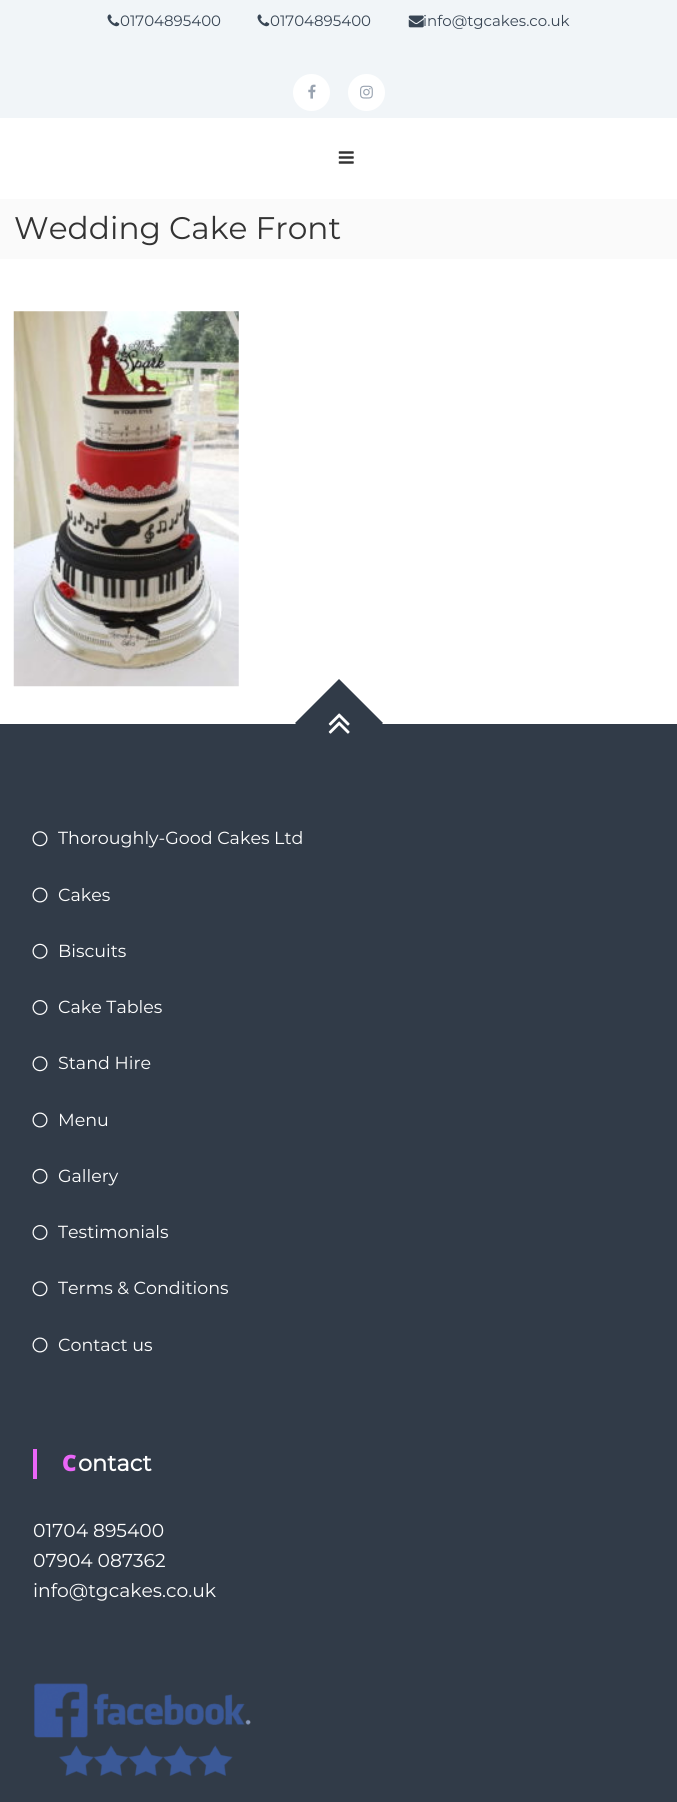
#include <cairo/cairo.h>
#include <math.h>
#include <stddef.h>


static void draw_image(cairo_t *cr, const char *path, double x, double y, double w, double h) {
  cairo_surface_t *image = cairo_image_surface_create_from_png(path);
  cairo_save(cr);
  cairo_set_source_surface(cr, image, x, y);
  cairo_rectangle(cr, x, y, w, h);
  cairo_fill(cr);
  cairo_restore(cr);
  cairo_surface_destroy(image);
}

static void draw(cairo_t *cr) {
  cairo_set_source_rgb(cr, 1, 1, 1);
  cairo_paint(cr);
  cairo_set_source_rgb(cr, 241 / 255.0, 245 / 255.0, 248 / 255.0);
  cairo_rectangle(cr, 0, 0, 677, 118);
  cairo_fill(cr);
  draw_image(cr, "images/1.png", 107, 14, 13, 13);
  draw_image(cr, "images/1.png", 257, 14, 13, 13);
  draw_image(cr, "images/2.png", 408, 15, 16, 13);
  cairo_set_source_rgb(cr, 1, 1, 1);
  cairo_arc(cr, 311.5, 92.5, 18.5, 0, 2 * M_PI);
  cairo_fill(cr);
  draw_image(cr, "images/3.png", 308, 84, 8, 15);
  cairo_arc(cr, 366.5, 92.5, 18.5, 0, 2 * M_PI);
  cairo_fill(cr);
  draw_image(cr, "images/4.png", 360, 85, 13, 14);
  draw_image(cr, "images/5.png", 338, 151, 16, 13);
  cairo_set_source_rgb(cr, 250 / 255.0, 250 / 255.0, 250 / 255.0);
  cairo_rectangle(cr, 0, 199, 677, 60);
  cairo_fill(cr);
  draw_image(cr, "images/6.png", 13, 311, 226, 376);
  cairo_set_source_rgb(cr, 49 / 255.0, 59 / 255.0, 72 / 255.0);
  cairo_rectangle(cr, 0, 724, 677, 1078);
  cairo_fill(cr);
  cairo_new_path(cr);
  cairo_move_to(cr, 339, 679);
  cairo_line_to(cr, 383, 723);
  cairo_line_to(cr, 339, 767);
  cairo_line_to(cr, 295, 723);
  cairo_close_path(cr);
  cairo_fill(cr);
  draw_image(cr, "images/7.png", 328, 713, 22, 21);
  draw_image(cr, "images/8.png", 32, 831, 16, 16);
  draw_image(cr, "images/9.png", 32, 887, 16, 16);
  draw_image(cr, "images/10.png", 32, 943, 16, 16);
  draw_image(cr, "images/11.png", 32, 1000, 16, 15);
  draw_image(cr, "images/8.png", 32, 1056, 16, 16);
  draw_image(cr, "images/9.png", 32, 1112, 16, 16);
  draw_image(cr, "images/10.png", 32, 1168, 16, 16);
  draw_image(cr, "images/11.png", 32, 1225, 16, 15);
  draw_image(cr, "images/8.png", 32, 1281, 16, 16);
  draw_image(cr, "images/9.png", 32, 1337, 16, 16);
  cairo_set_source_rgb(cr, 234 / 255.0, 102 / 255.0, 248 / 255.0);
  cairo_rectangle(cr, 33, 1449, 4, 30);
  cairo_fill(cr);
  draw_image(cr, "images/12.png", 34, 1683, 217, 93);
  cairo_select_font_face(cr, "Montserrat", CAIRO_FONT_SLANT_NORMAL, CAIRO_FONT_WEIGHT_NORMAL);
  cairo_set_font_size(cr, 15);
  cairo_set_source_rgb(cr, 56 / 255.0, 69 / 255.0, 84 / 255.0);
  cairo_move_to(cr, 120, 26);
  cairo_show_text(cr, "01704895400");
  cairo_move_to(cr, 270, 26);
  cairo_show_text(cr, "01704895400");
  cairo_move_to(cr, 423, 26);
  cairo_show_text(cr, "info@tgcakes.co.uk");
  cairo_set_font_size(cr, 31.25);
  cairo_set_source_rgb(cr, 51 / 255.0, 51 / 255.0, 51 / 255.0);
  cairo_move_to(cr, 14, 239);
  cairo_show_text(cr, "Wedding Cake Front");
  cairo_set_font_size(cr, 17.5);
  cairo_set_source_rgb(cr, 1, 1, 1);
  cairo_move_to(cr, 58, 844);
  cairo_show_text(cr, "Thoroughly-Good Cakes Ltd");
  cairo_move_to(cr, 58, 901);
  cairo_show_text(cr, "Cakes");
  cairo_move_to(cr, 58, 957);
  cairo_show_text(cr, "Biscuits");
  cairo_move_to(cr, 58, 1013);
  cairo_show_text(cr, "Cake Tables");
  cairo_move_to(cr, 58, 1069);
  cairo_show_text(cr, "Stand Hire");
  cairo_move_to(cr, 58, 1126);
  cairo_show_text(cr, "Menu");
  cairo_move_to(cr, 58, 1182);
  cairo_show_text(cr, "Gallery");
  cairo_move_to(cr, 58, 1238);
  cairo_show_text(cr, "Testimonials");
  cairo_move_to(cr, 58, 1294);
  cairo_show_text(cr, "Terms & Conditions");
  cairo_move_to(cr, 58, 1351);
  cairo_show_text(cr, "Contact us");
  cairo_select_font_face(cr, "Noto Sans Black", CAIRO_FONT_SLANT_NORMAL, CAIRO_FONT_WEIGHT_NORMAL);
  cairo_set_font_size(cr, 22.5);
  cairo_set_source_rgb(cr, 234 / 255.0, 102 / 255.0, 248 / 255.0);
  cairo_move_to(cr, 62, 1471);
  cairo_show_text(cr, "C");
  cairo_select_font_face(cr, "Montserrat", CAIRO_FONT_SLANT_NORMAL, CAIRO_FONT_WEIGHT_BOLD);
  cairo_set_source_rgb(cr, 1, 1, 1);
  cairo_move_to(cr, 78, 1471);
  cairo_show_text(cr, "ontact");
  cairo_select_font_face(cr, "Montserrat", CAIRO_FONT_SLANT_NORMAL, CAIRO_FONT_WEIGHT_NORMAL);
  cairo_set_font_size(cr, 18.75);
  cairo_move_to(cr, 33, 1537);
  cairo_show_text(cr, "01704 895400");
  cairo_move_to(cr, 33, 1567);
  cairo_show_text(cr, "07904 087362");
  cairo_move_to(cr, 33, 1597);
  cairo_show_text(cr, "info@tgcakes.co.uk");
}

int main(void) {
  cairo_surface_t *surface = cairo_image_surface_create(CAIRO_FORMAT_RGB24, 677, 1802);
  cairo_t *cr = cairo_create(surface);
  cairo_font_options_t *options = cairo_font_options_create();
  cairo_font_options_set_hint_metrics(options, CAIRO_HINT_METRICS_OFF);
  cairo_font_options_set_hint_style(options, CAIRO_HINT_STYLE_NONE);
  cairo_set_font_options(cr, options);
  cairo_set_miter_limit(cr, 4);
  draw(cr);
  cairo_surface_write_to_png(surface, "out.png");
  cairo_font_options_destroy(options);
  cairo_destroy(cr);
  cairo_surface_destroy(surface);
  return 0;
}
